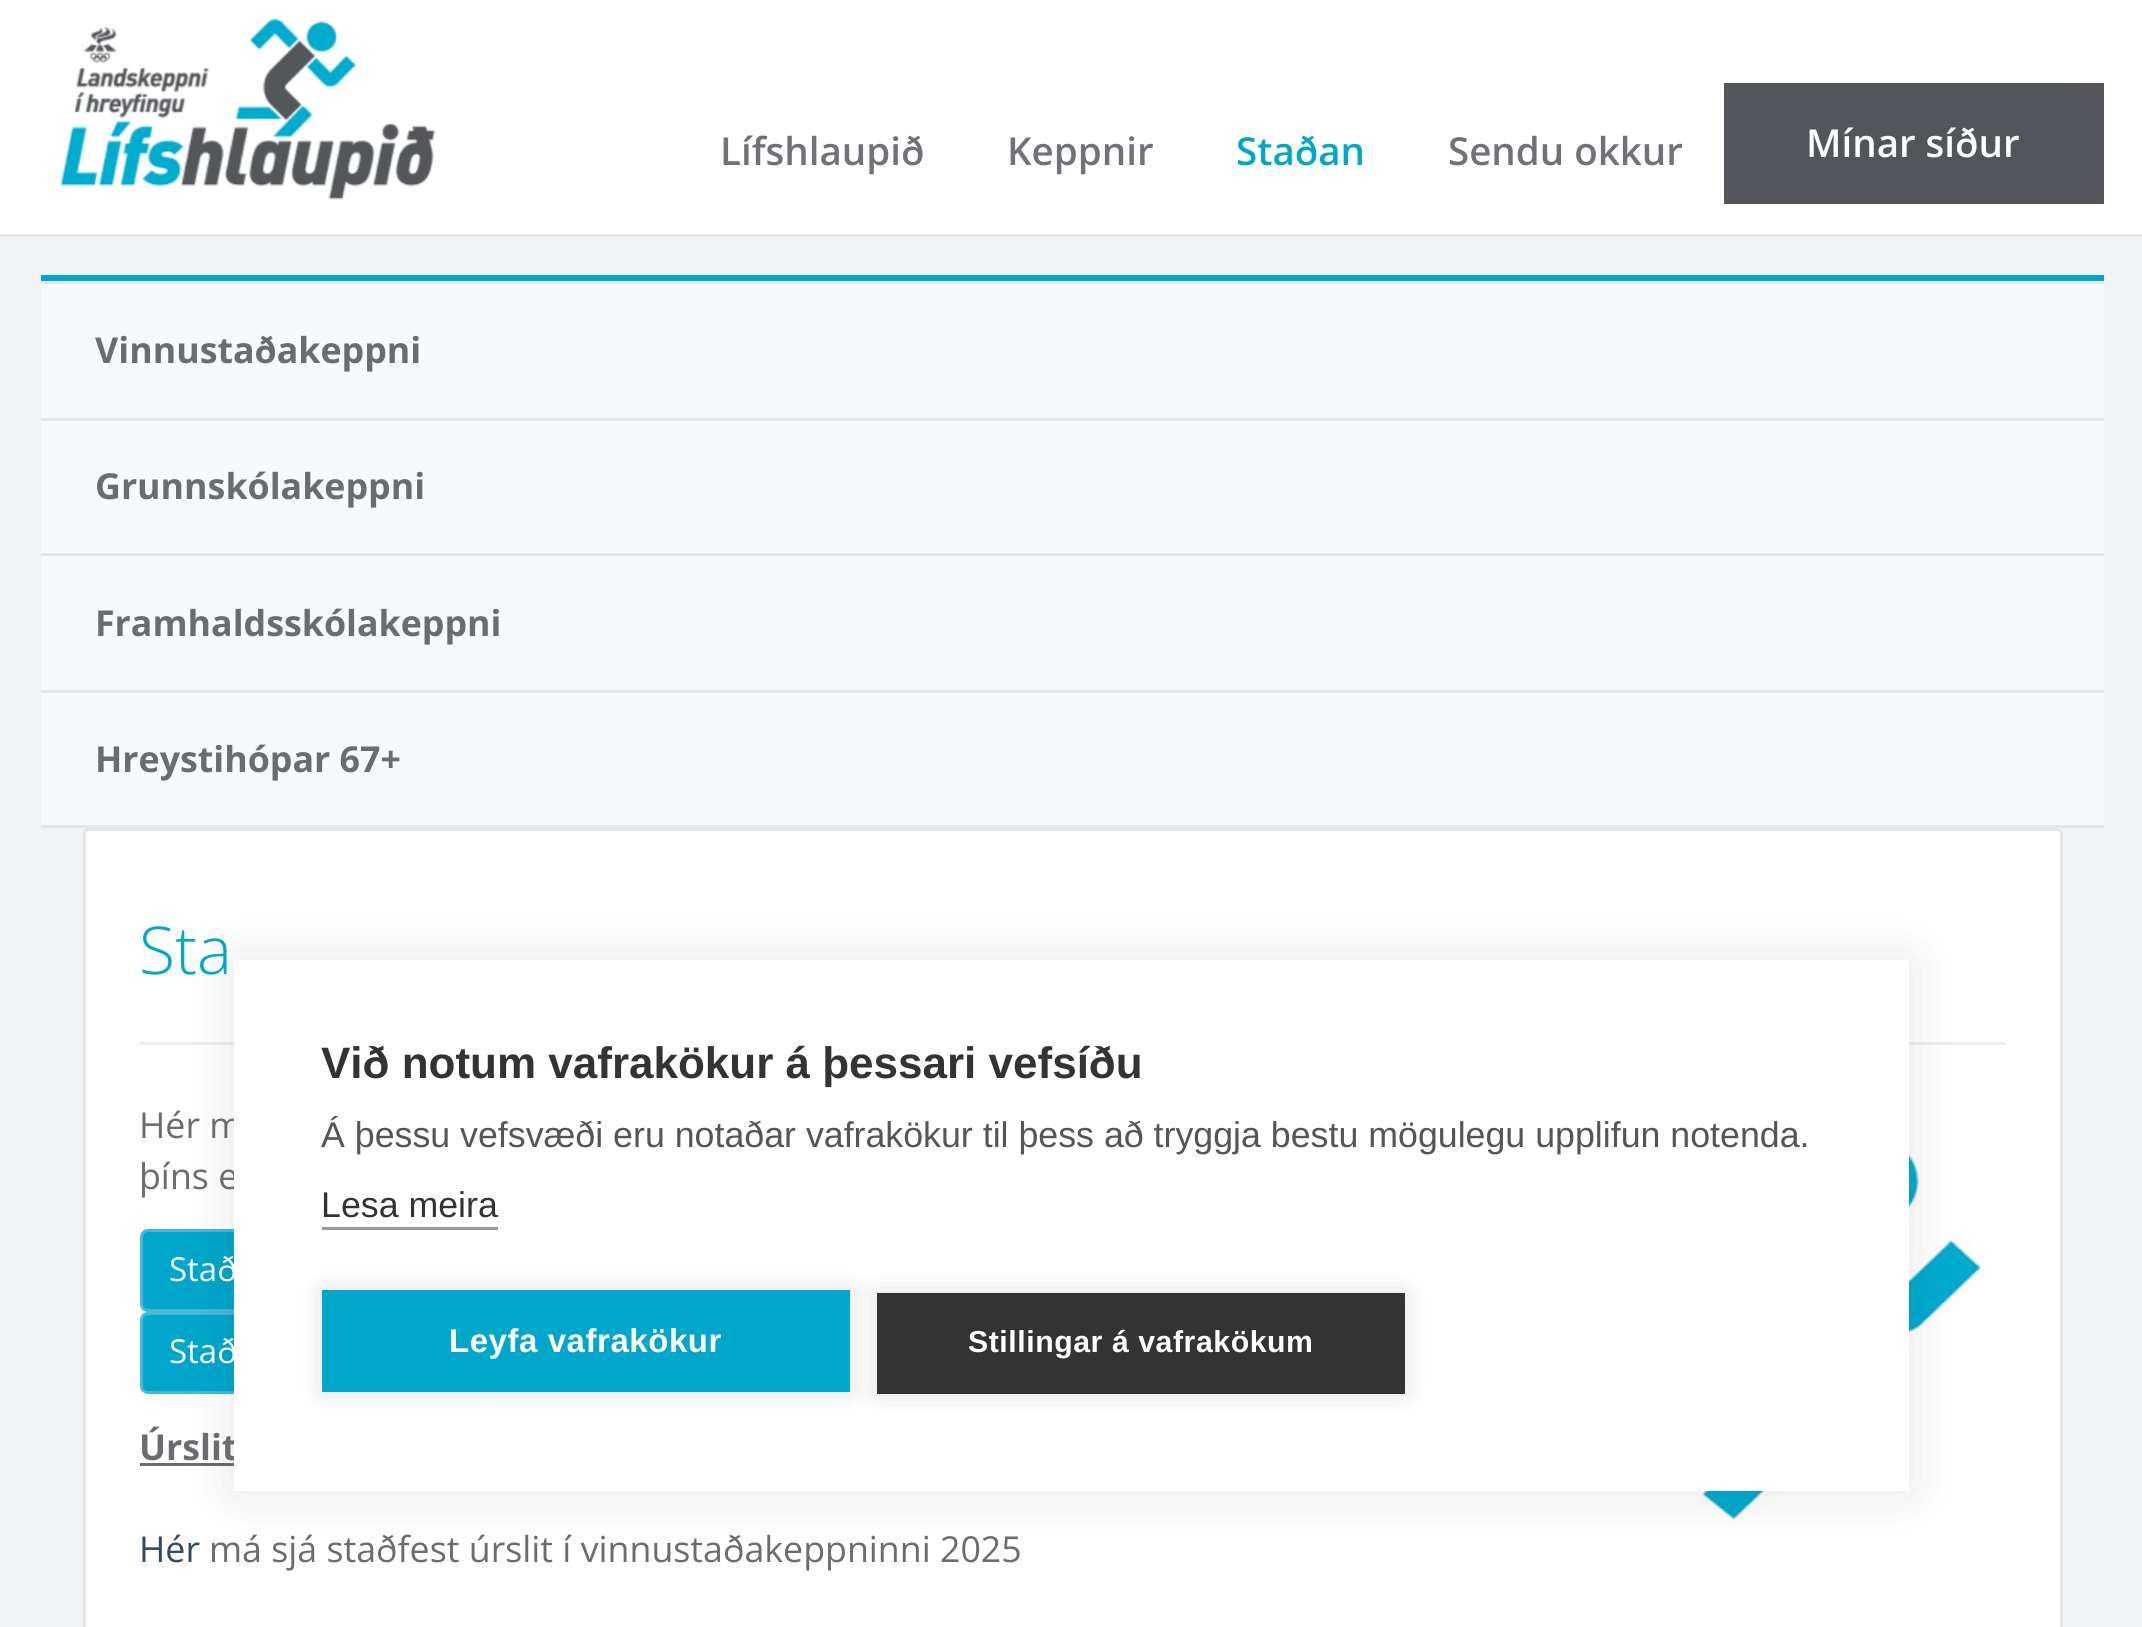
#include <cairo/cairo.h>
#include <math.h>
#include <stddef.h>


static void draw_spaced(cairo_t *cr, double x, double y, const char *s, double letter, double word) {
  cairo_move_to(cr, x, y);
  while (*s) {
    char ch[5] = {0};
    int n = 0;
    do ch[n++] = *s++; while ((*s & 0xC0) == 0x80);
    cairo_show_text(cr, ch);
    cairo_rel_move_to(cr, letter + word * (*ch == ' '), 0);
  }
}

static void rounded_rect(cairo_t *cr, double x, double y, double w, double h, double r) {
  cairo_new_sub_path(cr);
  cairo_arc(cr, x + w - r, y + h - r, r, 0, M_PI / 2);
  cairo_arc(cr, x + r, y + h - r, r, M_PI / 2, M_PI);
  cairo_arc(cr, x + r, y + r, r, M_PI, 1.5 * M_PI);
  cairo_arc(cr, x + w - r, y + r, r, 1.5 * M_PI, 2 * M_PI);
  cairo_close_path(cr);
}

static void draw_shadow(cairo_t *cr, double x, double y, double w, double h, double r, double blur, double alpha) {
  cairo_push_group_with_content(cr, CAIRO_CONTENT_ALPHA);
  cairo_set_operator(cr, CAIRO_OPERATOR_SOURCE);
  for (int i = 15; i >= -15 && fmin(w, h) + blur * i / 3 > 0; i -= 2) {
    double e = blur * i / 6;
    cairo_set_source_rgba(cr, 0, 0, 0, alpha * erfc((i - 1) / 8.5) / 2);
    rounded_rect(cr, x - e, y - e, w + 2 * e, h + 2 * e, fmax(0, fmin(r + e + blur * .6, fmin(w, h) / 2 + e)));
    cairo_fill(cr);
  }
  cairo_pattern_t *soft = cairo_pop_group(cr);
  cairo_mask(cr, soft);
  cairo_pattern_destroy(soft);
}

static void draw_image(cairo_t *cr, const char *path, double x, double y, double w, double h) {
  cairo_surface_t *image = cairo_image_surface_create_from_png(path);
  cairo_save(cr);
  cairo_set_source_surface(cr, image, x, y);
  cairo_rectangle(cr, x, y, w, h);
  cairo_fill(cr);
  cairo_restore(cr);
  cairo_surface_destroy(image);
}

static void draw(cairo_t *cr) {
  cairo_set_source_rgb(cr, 241 / 255.0, 243 / 255.0, 246 / 255.0);
  cairo_paint(cr);
  cairo_set_source_rgb(cr, 1, 1, 1);
  cairo_rectangle(cr, 0, 0, 2142, 234);
  cairo_fill(cr);
  cairo_set_source_rgb(cr, 231 / 255.0, 231 / 255.0, 231 / 255.0);
  cairo_rectangle(cr, 0, 234, 2142, 3);
  cairo_fill(cr);
  draw_image(cr, "images/1.png", 60, 18, 376, 182);
  cairo_set_source_rgb(cr, 82 / 255.0, 86 / 255.0, 90 / 255.0);
  cairo_rectangle(cr, 1724, 83, 380, 121);
  cairo_fill(cr);
  cairo_set_source_rgb(cr, 0, 167 / 255.0, 203 / 255.0);
  cairo_rectangle(cr, 41, 275, 2063, 6);
  cairo_fill(cr);
  cairo_set_source_rgb(cr, 247 / 255.0, 249 / 255.0, 250 / 255.0);
  cairo_rectangle(cr, 41, 284, 2063, 541);
  cairo_fill(cr);
  cairo_set_source_rgb(cr, 228 / 255.0, 229 / 255.0, 231 / 255.0);
  cairo_rectangle(cr, 41, 281, 2063, 3);
  cairo_fill(cr);
  cairo_rectangle(cr, 41, 418, 2063, 3);
  cairo_fill(cr);
  cairo_rectangle(cr, 41, 553, 2063, 3);
  cairo_fill(cr);
  cairo_rectangle(cr, 41, 690, 2063, 3);
  cairo_fill(cr);
  cairo_rectangle(cr, 41, 825, 2063, 3);
  cairo_fill(cr);
  cairo_set_source_rgb(cr, 1, 1, 1);
  rounded_rect(cr, 84.5, 829.5, 1977, 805, 4.5);
  cairo_fill_preserve(cr);
  cairo_set_source_rgb(cr, 228 / 255.0, 229 / 255.0, 231 / 255.0);
  cairo_set_line_width(cr, 3);
  cairo_stroke(cr);
  cairo_set_source_rgb(cr, 238 / 255.0, 238 / 255.0, 238 / 255.0);
  cairo_rectangle(cr, 140, 1042, 1865, 3);
  cairo_fill(cr);
  draw_image(cr, "images/2.png", 1581, 1125, 404, 403);
  cairo_set_source_rgb(cr, 0, 167 / 255.0, 203 / 255.0);
  rounded_rect(cr, 141.5, 1230.5, 462, 80, 6.5);
  cairo_fill_preserve(cr);
  cairo_set_source_rgb(cr, 70 / 255.0, 184 / 255.0, 218 / 255.0);
  cairo_stroke(cr);
  cairo_set_source_rgb(cr, 0, 167 / 255.0, 203 / 255.0);
  rounded_rect(cr, 141.5, 1313.5, 578, 79, 6.5);
  cairo_fill_preserve(cr);
  cairo_set_source_rgb(cr, 70 / 255.0, 184 / 255.0, 218 / 255.0);
  cairo_stroke(cr);
  cairo_set_source_rgb(cr, 106 / 255.0, 108 / 255.0, 111 / 255.0);
  cairo_rectangle(cr, 140, 1463, 94, 3);
  cairo_fill(cr);
  cairo_set_source_rgb(cr, 0, 0, 0);
  draw_shadow(cr, 234, 960, 1675, 531, 0, 27.5, 0.1);
  cairo_select_font_face(cr, "Open Sans SemiBold", CAIRO_FONT_SLANT_NORMAL, CAIRO_FONT_WEIGHT_NORMAL);
  cairo_set_font_size(cr, 38.5);
  cairo_set_source_rgb(cr, 111 / 255.0, 114 / 255.0, 118 / 255.0);
  cairo_move_to(cr, 720, 165);
  cairo_show_text(cr, "Lífshlaupið");
  cairo_move_to(cr, 1007, 165);
  cairo_show_text(cr, "Keppnir");
  cairo_set_source_rgb(cr, 0, 167 / 255.0, 203 / 255.0);
  cairo_move_to(cr, 1236, 165);
  cairo_show_text(cr, "Staðan");
  cairo_set_source_rgb(cr, 111 / 255.0, 114 / 255.0, 118 / 255.0);
  cairo_move_to(cr, 1448, 165);
  cairo_show_text(cr, "Sendu okkur");
  cairo_set_source_rgb(cr, 1, 1, 1);
  cairo_move_to(cr, 1806, 157);
  cairo_show_text(cr, "Mínar síður");
  cairo_select_font_face(cr, "Open Sans", CAIRO_FONT_SLANT_NORMAL, CAIRO_FONT_WEIGHT_BOLD);
  cairo_set_font_size(cr, 35.75);
  cairo_set_source_rgb(cr, 106 / 255.0, 108 / 255.0, 111 / 255.0);
  cairo_move_to(cr, 95, 363);
  cairo_show_text(cr, "Vinnustaðakeppni");
  cairo_move_to(cr, 95, 499);
  cairo_show_text(cr, "Grunnskólakeppni");
  cairo_move_to(cr, 95, 636);
  cairo_show_text(cr, "Framhaldsskólakeppni");
  cairo_move_to(cr, 95, 772);
  cairo_show_text(cr, "Hreystihópar 67+");
  cairo_select_font_face(cr, "Open Sans Light", CAIRO_FONT_SLANT_NORMAL, CAIRO_FONT_WEIGHT_NORMAL);
  cairo_set_font_size(cr, 66);
  cairo_set_source_rgb(cr, 0, 167 / 255.0, 203 / 255.0);
  cairo_move_to(cr, 139, 974);
  cairo_show_text(cr, "Sta");
  cairo_select_font_face(cr, "Open Sans", CAIRO_FONT_SLANT_NORMAL, CAIRO_FONT_WEIGHT_NORMAL);
  cairo_set_font_size(cr, 35.75);
  cairo_set_source_rgb(cr, 106 / 255.0, 108 / 255.0, 111 / 255.0);
  cairo_move_to(cr, 139, 1138);
  cairo_show_text(cr, "Hér m");
  cairo_move_to(cr, 139, 1189);
  cairo_show_text(cr, "þíns e");
  cairo_set_font_size(cr, 33);
  cairo_set_source_rgb(cr, 1, 1, 1);
  cairo_move_to(cr, 169, 1281);
  cairo_show_text(cr, "Stað");
  cairo_move_to(cr, 169, 1363);
  cairo_show_text(cr, "Stað");
  cairo_select_font_face(cr, "Open Sans", CAIRO_FONT_SLANT_NORMAL, CAIRO_FONT_WEIGHT_BOLD);
  cairo_set_font_size(cr, 35.75);
  cairo_set_source_rgb(cr, 106 / 255.0, 108 / 255.0, 111 / 255.0);
  cairo_move_to(cr, 139, 1460);
  cairo_show_text(cr, "Úrslit");
  cairo_select_font_face(cr, "Open Sans", CAIRO_FONT_SLANT_NORMAL, CAIRO_FONT_WEIGHT_NORMAL);
  cairo_set_source_rgb(cr, 52 / 255.0, 73 / 255.0, 94 / 255.0);
  cairo_move_to(cr, 139, 1562);
  cairo_show_text(cr, "Hér");
  cairo_set_source_rgb(cr, 106 / 255.0, 108 / 255.0, 111 / 255.0);
  cairo_move_to(cr, 209, 1562);
  cairo_show_text(cr, "má sjá staðfest úrslit í vinnustaðakeppninni 2025");
  cairo_set_source_rgb(cr, 1, 1, 1);
  cairo_rectangle(cr, 234, 960, 1675, 531);
  cairo_fill(cr);
  cairo_select_font_face(cr, "Liberation Sans", CAIRO_FONT_SLANT_NORMAL, CAIRO_FONT_WEIGHT_BOLD);
  cairo_set_font_size(cr, 44);
  cairo_set_source_rgb(cr, 51 / 255.0, 51 / 255.0, 51 / 255.0);
  cairo_move_to(cr, 321, 1078);
  cairo_show_text(cr, "Við notum vafrakökur á þessari vefsíðu");
  cairo_select_font_face(cr, "Liberation Sans", CAIRO_FONT_SLANT_NORMAL, CAIRO_FONT_WEIGHT_NORMAL);
  cairo_set_font_size(cr, 35.75);
  cairo_set_source_rgb(cr, 85 / 255.0, 85 / 255.0, 85 / 255.0);
  cairo_move_to(cr, 321, 1147);
  cairo_show_text(cr, "Á þessu vefsvæði eru notaðar vafrakökur til þess að tryggja bestu mögulegu upplifun notenda.");
  cairo_set_source_rgb(cr, 51 / 255.0, 51 / 255.0, 51 / 255.0);
  cairo_move_to(cr, 321, 1217);
  cairo_show_text(cr, "Lesa meira");
  cairo_set_source_rgb(cr, 153 / 255.0, 153 / 255.0, 153 / 255.0);
  cairo_rectangle(cr, 322, 1227, 176, 3);
  cairo_fill(cr);
  cairo_set_source_rgb(cr, 0, 0, 0);
  draw_shadow(cr, 322, 1290, 528, 102, 0, 14, 0.12);
  cairo_set_source_rgb(cr, 0, 167 / 255.0, 203 / 255.0);
  cairo_rectangle(cr, 322, 1290, 528, 102);
  cairo_fill(cr);
  cairo_select_font_face(cr, "Liberation Sans", CAIRO_FONT_SLANT_NORMAL, CAIRO_FONT_WEIGHT_BOLD);
  cairo_set_font_size(cr, 33);
  cairo_set_source_rgb(cr, 1, 1, 1);
  draw_spaced(cr, 449, 1352, "Leyfa vafrakökur", 0.55, 0);
  cairo_set_source_rgb(cr, 0, 0, 0);
  draw_shadow(cr, 877, 1293, 528, 101, 0, 14, 0.12);
  cairo_set_source_rgb(cr, 51 / 255.0, 51 / 255.0, 51 / 255.0);
  cairo_rectangle(cr, 877, 1293, 528, 101);
  cairo_fill(cr);
  cairo_set_font_size(cr, 30.25);
  cairo_set_source_rgb(cr, 1, 1, 1);
  draw_spaced(cr, 968, 1352, "Stillingar á vafrakökum", 0.55, 0);
}

int main(void) {
  cairo_surface_t *surface = cairo_image_surface_create(CAIRO_FORMAT_RGB24, 2142, 1627);
  cairo_t *cr = cairo_create(surface);
  cairo_font_options_t *options = cairo_font_options_create();
  cairo_font_options_set_hint_metrics(options, CAIRO_HINT_METRICS_OFF);
  cairo_font_options_set_hint_style(options, CAIRO_HINT_STYLE_NONE);
  cairo_set_font_options(cr, options);
  cairo_set_miter_limit(cr, 4);
  draw(cr);
  cairo_surface_write_to_png(surface, "out.png");
  cairo_font_options_destroy(options);
  cairo_destroy(cr);
  cairo_surface_destroy(surface);
  return 0;
}
